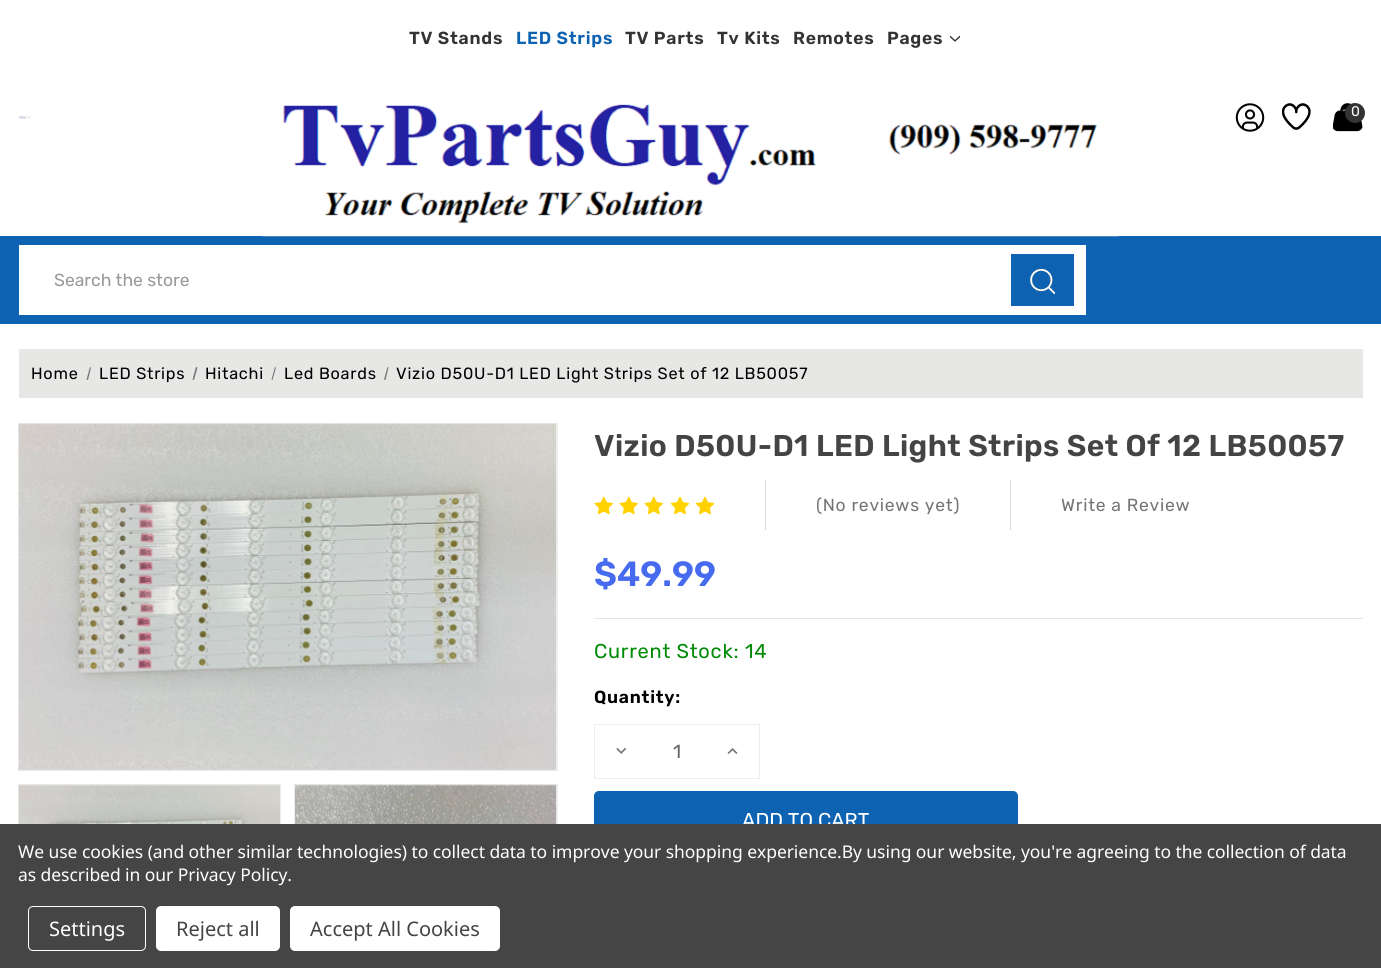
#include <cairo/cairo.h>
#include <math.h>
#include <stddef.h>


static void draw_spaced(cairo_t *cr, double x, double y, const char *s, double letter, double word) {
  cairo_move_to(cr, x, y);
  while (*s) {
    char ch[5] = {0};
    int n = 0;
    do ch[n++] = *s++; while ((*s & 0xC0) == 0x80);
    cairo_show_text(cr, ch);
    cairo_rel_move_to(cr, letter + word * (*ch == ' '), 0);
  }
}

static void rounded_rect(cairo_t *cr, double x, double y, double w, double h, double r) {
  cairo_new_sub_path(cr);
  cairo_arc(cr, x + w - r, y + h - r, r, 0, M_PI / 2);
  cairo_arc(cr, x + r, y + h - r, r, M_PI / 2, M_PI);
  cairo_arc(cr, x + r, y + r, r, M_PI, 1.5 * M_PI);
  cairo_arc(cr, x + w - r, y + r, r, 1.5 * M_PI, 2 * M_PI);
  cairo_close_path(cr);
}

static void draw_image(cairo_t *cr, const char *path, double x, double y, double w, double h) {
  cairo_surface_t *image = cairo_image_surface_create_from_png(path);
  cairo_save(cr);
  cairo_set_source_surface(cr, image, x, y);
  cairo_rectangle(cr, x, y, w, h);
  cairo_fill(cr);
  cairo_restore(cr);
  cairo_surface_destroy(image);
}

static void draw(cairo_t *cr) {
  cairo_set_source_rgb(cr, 1, 1, 1);
  cairo_paint(cr);
  draw_image(cr, "images/1.png", 950, 35, 10, 7);
  cairo_set_source_rgb(cr, 13 / 255.0, 99 / 255.0, 178 / 255.0);
  cairo_rectangle(cr, 0, 236, 1381, 88);
  cairo_fill(cr);
  draw_image(cr, "images/2.png", 262, 104, 857, 133);
  draw_image(cr, "images/3.png", 1235, 103, 30, 29);
  draw_image(cr, "images/4.png", 1282, 103, 29, 27);
  draw_image(cr, "images/5.png", 1333, 103, 30, 29);
  cairo_set_source_rgb(cr, 51 / 255.0, 51 / 255.0, 51 / 255.0);
  cairo_arc(cr, 1355, 113, 10, 0, 2 * M_PI);
  cairo_fill(cr);
  draw_image(cr, "images/6.png", 18, 116, 13, 3);
  cairo_set_source_rgb(cr, 1, 1, 1);
  cairo_rectangle(cr, 19, 245, 1067, 70);
  cairo_fill(cr);
  cairo_set_source_rgb(cr, 13 / 255.0, 99 / 255.0, 178 / 255.0);
  cairo_rectangle(cr, 1011, 254, 63, 52);
  cairo_fill(cr);
  draw_image(cr, "images/7.png", 1030, 269, 25, 25);
  cairo_set_source_rgb(cr, 231 / 255.0, 231 / 255.0, 230 / 255.0);
  cairo_rectangle(cr, 19, 349, 1344, 49);
  cairo_fill(cr);
  cairo_set_source_rgb(cr, 117 / 255.0, 117 / 255.0, 117 / 255.0);
  cairo_new_path(cr);
  cairo_move_to(cr, 90, 367);
  cairo_line_to(cr, 91, 367.5);
  cairo_line_to(cr, 88, 380);
  cairo_line_to(cr, 86.5, 379.5);
  cairo_close_path(cr);
  cairo_fill(cr);
  cairo_new_path(cr);
  cairo_move_to(cr, 196, 367);
  cairo_line_to(cr, 197.5, 367.5);
  cairo_line_to(cr, 194, 380);
  cairo_line_to(cr, 192.5, 379.5);
  cairo_close_path(cr);
  cairo_fill(cr);
  cairo_new_path(cr);
  cairo_move_to(cr, 275, 367);
  cairo_line_to(cr, 276, 367.5);
  cairo_line_to(cr, 272.5, 380);
  cairo_line_to(cr, 271.5, 379.5);
  cairo_close_path(cr);
  cairo_fill(cr);
  cairo_new_path(cr);
  cairo_move_to(cr, 387.5, 367);
  cairo_line_to(cr, 388.5, 367.5);
  cairo_line_to(cr, 385.5, 380);
  cairo_line_to(cr, 384, 379.5);
  cairo_close_path(cr);
  cairo_fill(cr);
  cairo_rectangle(cr, 18.5, 423.5, 539, 347);
  cairo_set_source_rgb(cr, 238 / 255.0, 238 / 255.0, 238 / 255.0);
  cairo_set_line_width(cr, 1);
  cairo_stroke(cr);
  draw_image(cr, "images/8.png", 18, 423, 539, 348);
  cairo_rectangle(cr, 18.5, 784.5, 262, 170);
  cairo_stroke(cr);
  draw_image(cr, "images/9.png", 18, 784, 262, 40);
  cairo_rectangle(cr, 294.5, 784.5, 263, 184);
  cairo_stroke(cr);
  draw_image(cr, "images/10.png", 295, 784, 262, 40);
  draw_image(cr, "images/11.png", 594, 496, 19, 19);
  draw_image(cr, "images/11.png", 619, 496, 19, 19);
  draw_image(cr, "images/11.png", 644, 496, 19, 19);
  draw_image(cr, "images/12.png", 670, 496, 20, 19);
  draw_image(cr, "images/12.png", 695, 496, 20, 19);
  cairo_set_source_rgb(cr, 221 / 255.0, 221 / 255.0, 221 / 255.0);
  cairo_rectangle(cr, 1010, 480, 1, 50);
  cairo_fill(cr);
  cairo_rectangle(cr, 765, 480, 1, 50);
  cairo_fill(cr);
  cairo_set_source_rgb(cr, 229 / 255.0, 229 / 255.0, 229 / 255.0);
  cairo_rectangle(cr, 594, 618, 769, 1);
  cairo_fill(cr);
  cairo_rectangle(cr, 594.5, 724.5, 165, 54);
  cairo_set_source_rgb(cr, 238 / 255.0, 238 / 255.0, 238 / 255.0);
  cairo_stroke(cr);
  draw_image(cr, "images/13.png", 616, 747, 11, 7);
  draw_image(cr, "images/14.png", 727, 748, 11, 6);
  cairo_set_source_rgb(cr, 13 / 255.0, 99 / 255.0, 178 / 255.0);
  rounded_rect(cr, 594.5, 791.5, 423, 57, 4.5);
  cairo_fill_preserve(cr);
  cairo_stroke(cr);
  cairo_select_font_face(cr, "Rubik SemiBold", CAIRO_FONT_SLANT_NORMAL, CAIRO_FONT_WEIGHT_NORMAL);
  cairo_set_font_size(cr, 17.5);
  cairo_set_source_rgb(cr, 51 / 255.0, 51 / 255.0, 51 / 255.0);
  draw_spaced(cr, 409, 44, "TV Stands", 0.75, 0);
  cairo_set_source_rgb(cr, 13 / 255.0, 99 / 255.0, 178 / 255.0);
  draw_spaced(cr, 516, 44, "LED Strips", 0.75, 0);
  cairo_set_source_rgb(cr, 51 / 255.0, 51 / 255.0, 51 / 255.0);
  draw_spaced(cr, 625, 44, "TV Parts", 0.75, 0);
  draw_spaced(cr, 717, 44, "Tv Kits", 0.75, 0);
  draw_spaced(cr, 793, 44, "Remotes", 0.75, 0);
  draw_spaced(cr, 887, 44, "Pages", 0.75, 0);
  cairo_select_font_face(cr, "Rubik", CAIRO_FONT_SLANT_NORMAL, CAIRO_FONT_WEIGHT_NORMAL);
  cairo_set_font_size(cr, 14);
  cairo_set_source_rgb(cr, 1, 1, 1);
  cairo_move_to(cr, 1351, 116);
  cairo_show_text(cr, "0");
  cairo_set_font_size(cr, 17.5);
  cairo_set_source_rgb(cr, 153 / 255.0, 153 / 255.0, 153 / 255.0);
  cairo_move_to(cr, 54, 286);
  cairo_show_text(cr, "Search the store");
  cairo_set_font_size(cr, 16.25);
  cairo_set_source_rgb(cr, 0, 0, 0);
  draw_spaced(cr, 31, 379, "Home", 0.75, 0);
  draw_spaced(cr, 99, 379, "LED Strips", 0.75, 0);
  draw_spaced(cr, 205, 379, "Hitachi", 0.75, 0);
  draw_spaced(cr, 284, 379, "Led Boards", 0.75, 0);
  draw_spaced(cr, 396, 379, "Vizio D50U-D1 LED Light Strips Set of 12 LB50057", 0.75, 0);
  cairo_select_font_face(cr, "Rubik SemiBold", CAIRO_FONT_SLANT_NORMAL, CAIRO_FONT_WEIGHT_NORMAL);
  cairo_set_font_size(cr, 30);
  cairo_set_source_rgb(cr, 68 / 255.0, 68 / 255.0, 68 / 255.0);
  draw_spaced(cr, 594, 456, "Vizio D50U-D1 LED Light Strips Set Of 12 LB50057", 0.4, 0);
  cairo_select_font_face(cr, "Rubik", CAIRO_FONT_SLANT_NORMAL, CAIRO_FONT_WEIGHT_NORMAL);
  cairo_set_font_size(cr, 17.5);
  cairo_set_source_rgb(cr, 117 / 255.0, 117 / 255.0, 117 / 255.0);
  draw_spaced(cr, 816, 511, "(No reviews yet)", 0.75, 0);
  draw_spaced(cr, 1061, 511, "Write a Review", 0.75, 0);
  cairo_select_font_face(cr, "Rubik SemiBold", CAIRO_FONT_SLANT_NORMAL, CAIRO_FONT_WEIGHT_NORMAL);
  cairo_set_font_size(cr, 35);
  cairo_set_source_rgb(cr, 71 / 255.0, 107 / 255.0, 239 / 255.0);
  cairo_move_to(cr, 594, 586);
  cairo_show_text(cr, "$49.99");
  cairo_select_font_face(cr, "Rubik", CAIRO_FONT_SLANT_NORMAL, CAIRO_FONT_WEIGHT_NORMAL);
  cairo_set_font_size(cr, 20);
  cairo_set_source_rgb(cr, 0, 138 / 255.0, 6 / 255.0);
  draw_spaced(cr, 594, 658, "Current Stock: 14", 0.75, 0);
  cairo_select_font_face(cr, "Rubik SemiBold", CAIRO_FONT_SLANT_NORMAL, CAIRO_FONT_WEIGHT_NORMAL);
  cairo_set_font_size(cr, 17.5);
  cairo_set_source_rgb(cr, 0, 0, 0);
  draw_spaced(cr, 594, 703, "Quantity:", 0.75, 0);
  cairo_select_font_face(cr, "Rubik", CAIRO_FONT_SLANT_NORMAL, CAIRO_FONT_WEIGHT_NORMAL);
  cairo_set_font_size(cr, 19);
  cairo_set_source_rgb(cr, 102 / 255.0, 102 / 255.0, 102 / 255.0);
  cairo_move_to(cr, 673, 758);
  cairo_show_text(cr, "1");
  cairo_set_font_size(cr, 20);
  cairo_set_source_rgb(cr, 1, 1, 1);
  cairo_move_to(cr, 742, 827);
  cairo_show_text(cr, "ADD TO CART");
  cairo_set_source_rgb(cr, 69 / 255.0, 69 / 255.0, 69 / 255.0);
  cairo_rectangle(cr, 0, 824, 1381, 144);
  cairo_fill(cr);
  cairo_select_font_face(cr, "Noto Sans", CAIRO_FONT_SLANT_NORMAL, CAIRO_FONT_WEIGHT_NORMAL);
  cairo_set_font_size(cr, 17.5);
  cairo_set_source_rgb(cr, 1, 1, 1);
  draw_spaced(cr, 18, 858, "We use cookies (and other similar technologies) to collect data to improve your shopping experience.By using our website, you're agreeing to the collection of data", -0.06, 0);
  draw_spaced(cr, 18, 881, "as described in our Privacy Policy.", -0.06, 0);
  rounded_rect(cr, 28.5, 906.5, 117, 44, 4.5);
  cairo_stroke(cr);
  cairo_set_font_size(cr, 20);
  cairo_move_to(cr, 49, 936);
  cairo_show_text(cr, "Settings");
  rounded_rect(cr, 156, 906, 124, 45, 5);
  cairo_fill(cr);
  cairo_set_source_rgb(cr, 68 / 255.0, 68 / 255.0, 68 / 255.0);
  cairo_move_to(cr, 176, 936);
  cairo_show_text(cr, "Reject all");
  cairo_set_source_rgb(cr, 1, 1, 1);
  rounded_rect(cr, 290, 906, 210, 45, 5);
  cairo_fill(cr);
  cairo_set_source_rgb(cr, 68 / 255.0, 68 / 255.0, 68 / 255.0);
  cairo_move_to(cr, 310, 936);
  cairo_show_text(cr, "Accept All Cookies");
}

int main(void) {
  cairo_surface_t *surface = cairo_image_surface_create(CAIRO_FORMAT_RGB24, 1381, 968);
  cairo_t *cr = cairo_create(surface);
  cairo_font_options_t *options = cairo_font_options_create();
  cairo_font_options_set_hint_metrics(options, CAIRO_HINT_METRICS_OFF);
  cairo_font_options_set_hint_style(options, CAIRO_HINT_STYLE_NONE);
  cairo_set_font_options(cr, options);
  cairo_set_miter_limit(cr, 4);
  draw(cr);
  cairo_surface_write_to_png(surface, "out.png");
  cairo_font_options_destroy(options);
  cairo_destroy(cr);
  cairo_surface_destroy(surface);
  return 0;
}
